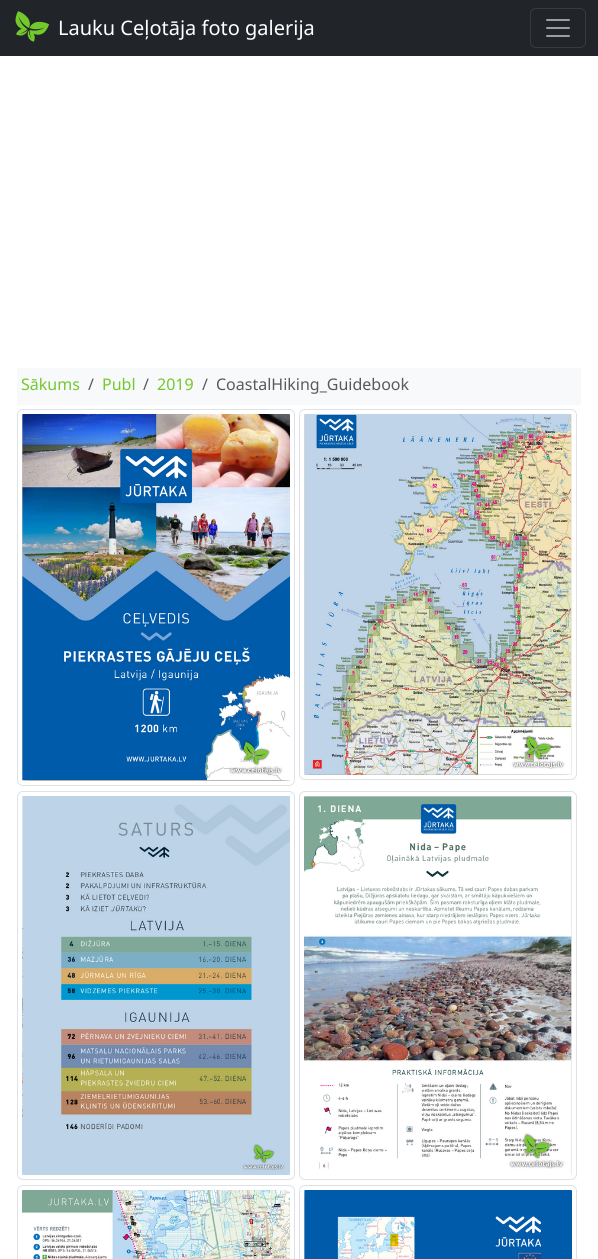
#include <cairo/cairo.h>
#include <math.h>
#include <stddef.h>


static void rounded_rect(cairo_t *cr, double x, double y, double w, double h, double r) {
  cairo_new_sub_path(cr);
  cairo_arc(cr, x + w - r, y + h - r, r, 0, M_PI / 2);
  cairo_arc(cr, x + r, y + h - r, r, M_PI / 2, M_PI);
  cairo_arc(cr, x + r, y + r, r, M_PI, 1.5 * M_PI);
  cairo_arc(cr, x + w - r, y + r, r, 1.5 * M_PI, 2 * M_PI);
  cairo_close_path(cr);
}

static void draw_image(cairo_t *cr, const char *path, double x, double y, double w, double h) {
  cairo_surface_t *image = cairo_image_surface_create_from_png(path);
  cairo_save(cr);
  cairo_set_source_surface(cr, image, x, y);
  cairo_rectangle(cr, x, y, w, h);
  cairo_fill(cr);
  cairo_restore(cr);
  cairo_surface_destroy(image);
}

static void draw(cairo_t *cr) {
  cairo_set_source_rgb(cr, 1, 1, 1);
  cairo_paint(cr);
  cairo_set_source_rgb(cr, 33 / 255.0, 37 / 255.0, 41 / 255.0);
  cairo_rectangle(cr, 0, 0, 598, 56);
  cairo_fill(cr);
  draw_image(cr, "images/1.png", 15, 11, 34, 31);
  rounded_rect(cr, 530.5, 8.5, 55, 39, 5.5);
  cairo_set_source_rgb(cr, 55 / 255.0, 59 / 255.0, 62 / 255.0);
  cairo_set_line_width(cr, 1);
  cairo_stroke(cr);
  draw_image(cr, "images/2.png", 546, 19, 24, 18);
  cairo_set_source_rgb(cr, 248 / 255.0, 249 / 255.0, 250 / 255.0);
  cairo_rectangle(cr, 17, 368, 564, 37);
  cairo_fill(cr);
  rounded_rect(cr, 17.5, 409.5, 277, 376, 5.5);
  cairo_set_source_rgb(cr, 222 / 255.0, 226 / 255.0, 230 / 255.0);
  cairo_stroke(cr);
  draw_image(cr, "images/3.png", 22, 414, 268, 367);
  rounded_rect(cr, 299.5, 409.5, 277, 370, 5.5);
  cairo_stroke(cr);
  draw_image(cr, "images/4.png", 304, 414, 268, 361);
  rounded_rect(cr, 17.5, 791.5, 277, 388, 5.5);
  cairo_stroke(cr);
  draw_image(cr, "images/5.png", 22, 796, 268, 379);
  rounded_rect(cr, 299.5, 791.5, 277, 388, 5.5);
  cairo_stroke(cr);
  draw_image(cr, "images/6.png", 304, 796, 268, 379);
  rounded_rect(cr, 17.5, 1185.5, 277, 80, 5.5);
  cairo_stroke(cr);
  draw_image(cr, "images/7.png", 22, 1190, 268, 69);
  rounded_rect(cr, 299.5, 1185.5, 277, 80, 5.5);
  cairo_stroke(cr);
  draw_image(cr, "images/8.png", 304, 1190, 268, 69);
  cairo_select_font_face(cr, "Noto Sans", CAIRO_FONT_SLANT_NORMAL, CAIRO_FONT_WEIGHT_NORMAL);
  cairo_set_font_size(cr, 20);
  cairo_set_source_rgb(cr, 1, 1, 1);
  cairo_move_to(cr, 58, 35);
  cairo_show_text(cr, "Lauku Ceļotāja foto galerija");
  cairo_set_font_size(cr, 16);
  cairo_set_source_rgb(cr, 115 / 255.0, 200 / 255.0, 44 / 255.0);
  cairo_move_to(cr, 21, 390);
  cairo_show_text(cr, "Sākums");
  cairo_set_source_rgb(cr, 87 / 255.0, 90 / 255.0, 93 / 255.0);
  cairo_move_to(cr, 88, 390);
  cairo_show_text(cr, "/");
  cairo_set_source_rgb(cr, 115 / 255.0, 200 / 255.0, 44 / 255.0);
  cairo_move_to(cr, 102, 390);
  cairo_show_text(cr, "Publ");
  cairo_set_source_rgb(cr, 87 / 255.0, 90 / 255.0, 93 / 255.0);
  cairo_move_to(cr, 143, 390);
  cairo_show_text(cr, "/");
  cairo_set_source_rgb(cr, 115 / 255.0, 200 / 255.0, 44 / 255.0);
  cairo_move_to(cr, 157, 390);
  cairo_show_text(cr, "2019");
  cairo_set_source_rgb(cr, 87 / 255.0, 90 / 255.0, 93 / 255.0);
  cairo_move_to(cr, 202, 390);
  cairo_show_text(cr, "/");
  cairo_move_to(cr, 216, 390);
  cairo_show_text(cr, "CoastalHiking_Guidebook");
}

int main(void) {
  cairo_surface_t *surface = cairo_image_surface_create(CAIRO_FORMAT_RGB24, 598, 1259);
  cairo_t *cr = cairo_create(surface);
  cairo_font_options_t *options = cairo_font_options_create();
  cairo_font_options_set_hint_metrics(options, CAIRO_HINT_METRICS_OFF);
  cairo_font_options_set_hint_style(options, CAIRO_HINT_STYLE_NONE);
  cairo_set_font_options(cr, options);
  cairo_set_miter_limit(cr, 4);
  draw(cr);
  cairo_surface_write_to_png(surface, "out.png");
  cairo_font_options_destroy(options);
  cairo_destroy(cr);
  cairo_surface_destroy(surface);
  return 0;
}
